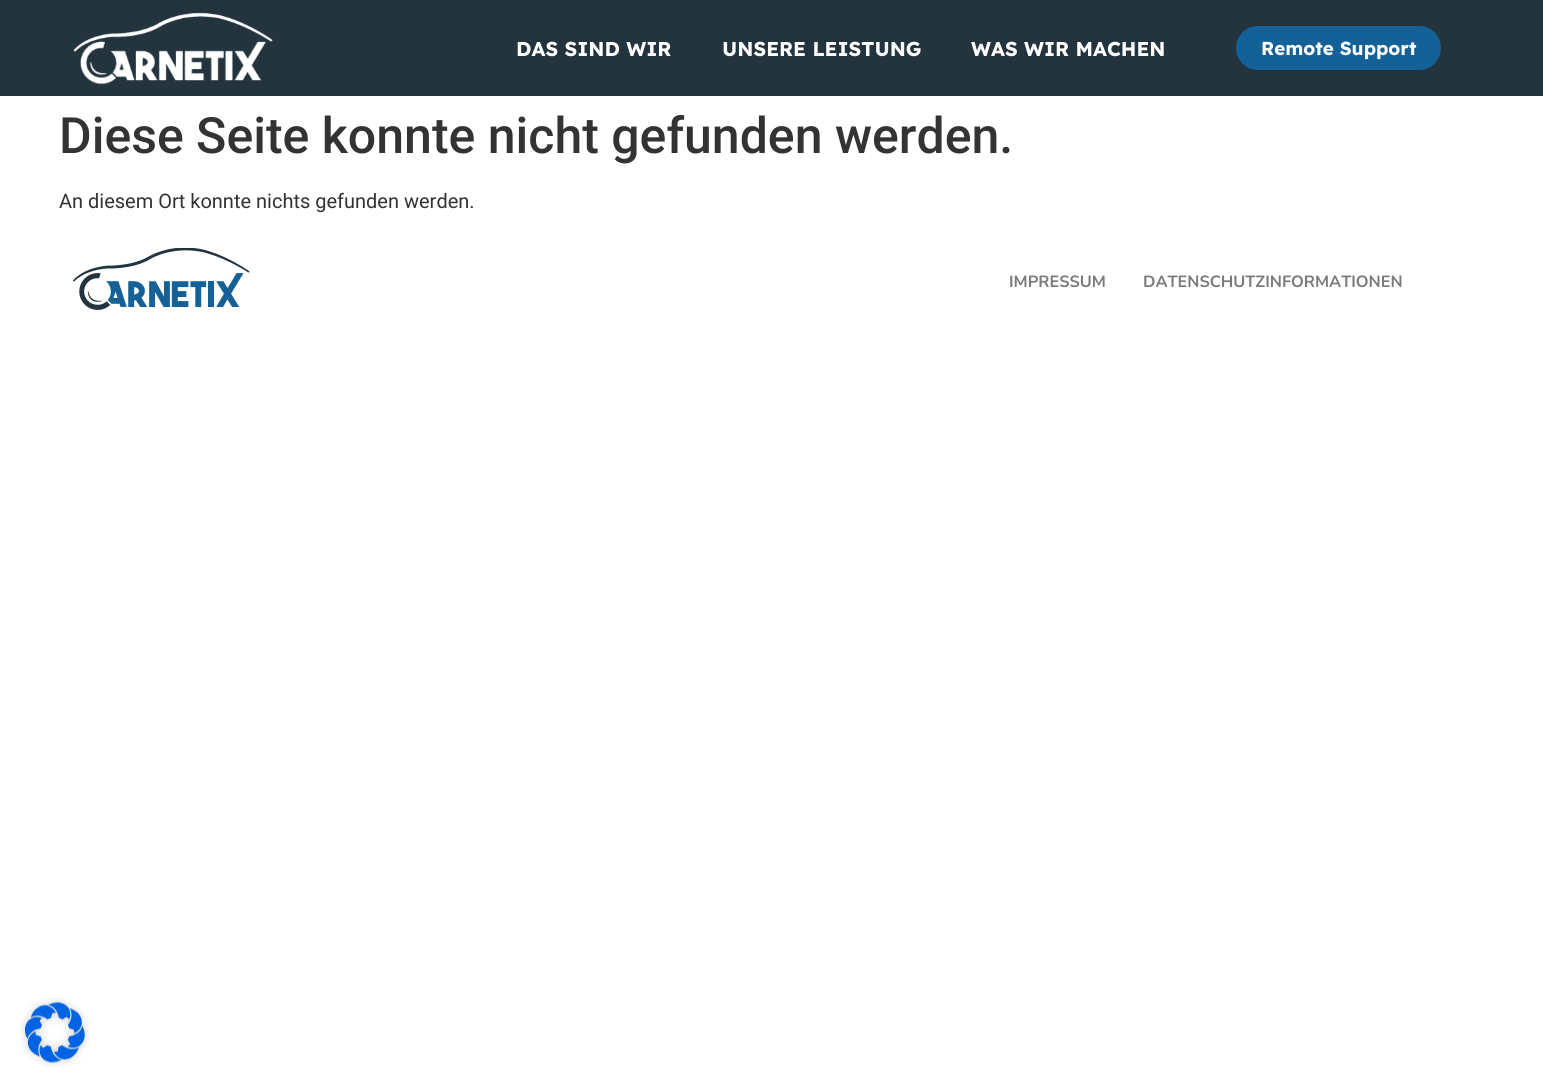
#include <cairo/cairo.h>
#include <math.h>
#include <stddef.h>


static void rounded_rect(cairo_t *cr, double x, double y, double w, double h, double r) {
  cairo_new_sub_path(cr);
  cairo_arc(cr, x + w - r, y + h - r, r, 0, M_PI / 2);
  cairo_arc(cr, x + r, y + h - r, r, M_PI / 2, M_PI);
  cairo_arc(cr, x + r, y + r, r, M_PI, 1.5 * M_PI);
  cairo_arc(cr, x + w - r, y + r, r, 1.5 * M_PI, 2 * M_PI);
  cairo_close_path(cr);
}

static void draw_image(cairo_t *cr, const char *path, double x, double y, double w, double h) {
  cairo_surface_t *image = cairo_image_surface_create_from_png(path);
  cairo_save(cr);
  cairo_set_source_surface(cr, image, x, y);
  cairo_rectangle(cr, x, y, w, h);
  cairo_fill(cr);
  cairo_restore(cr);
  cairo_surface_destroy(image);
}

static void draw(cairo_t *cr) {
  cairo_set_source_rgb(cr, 1, 1, 1);
  cairo_paint(cr);
  cairo_set_source_rgb(cr, 36 / 255.0, 52 / 255.0, 63 / 255.0);
  cairo_rectangle(cr, 0, 0, 1543, 96);
  cairo_fill(cr);
  draw_image(cr, "images/1.png", 73, 12, 200, 73);
  cairo_set_source_rgb(cr, 20 / 255.0, 97 / 255.0, 152 / 255.0);
  rounded_rect(cr, 1236, 26, 205, 44, 22);
  cairo_fill(cr);
  draw_image(cr, "images/2.png", 73, 248, 177, 62);
  draw_image(cr, "images/3.png", 20, 997, 70, 70);
  cairo_select_font_face(cr, "Readex Pro", CAIRO_FONT_SLANT_NORMAL, CAIRO_FONT_WEIGHT_BOLD);
  cairo_set_font_size(cr, 20);
  cairo_set_source_rgb(cr, 1, 1, 1);
  cairo_move_to(cr, 516, 56);
  cairo_show_text(cr, "DAS SIND WIR");
  cairo_move_to(cr, 722, 56);
  cairo_show_text(cr, "UNSERE LEISTUNG");
  cairo_move_to(cr, 971, 56);
  cairo_show_text(cr, "WAS WIR MACHEN");
  cairo_set_font_size(cr, 18.75);
  cairo_move_to(cr, 1261, 55);
  cairo_show_text(cr, "Remote Support");
  cairo_select_font_face(cr, "Roboto Medium", CAIRO_FONT_SLANT_NORMAL, CAIRO_FONT_WEIGHT_NORMAL);
  cairo_set_font_size(cr, 50);
  cairo_set_source_rgb(cr, 51 / 255.0, 51 / 255.0, 51 / 255.0);
  cairo_move_to(cr, 59, 153);
  cairo_show_text(cr, "Diese Seite konnte nicht gefunden werden.");
  cairo_select_font_face(cr, "Roboto", CAIRO_FONT_SLANT_NORMAL, CAIRO_FONT_WEIGHT_NORMAL);
  cairo_set_font_size(cr, 20);
  cairo_move_to(cr, 59, 208);
  cairo_show_text(cr, "An diesem Ort konnte nichts gefunden werden.");
  cairo_select_font_face(cr, "Nunito", CAIRO_FONT_SLANT_NORMAL, CAIRO_FONT_WEIGHT_BOLD);
  cairo_set_font_size(cr, 16.25);
  cairo_set_source_rgb(cr, 122 / 255.0, 122 / 255.0, 122 / 255.0);
  cairo_move_to(cr, 1009, 287);
  cairo_show_text(cr, "IMPRESSUM");
  cairo_move_to(cr, 1143, 287);
  cairo_show_text(cr, "DATENSCHUTZINFORMATIONEN");
}

int main(void) {
  cairo_surface_t *surface = cairo_image_surface_create(CAIRO_FORMAT_RGB24, 1543, 1087);
  cairo_t *cr = cairo_create(surface);
  cairo_font_options_t *options = cairo_font_options_create();
  cairo_font_options_set_hint_metrics(options, CAIRO_HINT_METRICS_OFF);
  cairo_font_options_set_hint_style(options, CAIRO_HINT_STYLE_NONE);
  cairo_set_font_options(cr, options);
  cairo_set_miter_limit(cr, 4);
  draw(cr);
  cairo_surface_write_to_png(surface, "out.png");
  cairo_font_options_destroy(options);
  cairo_destroy(cr);
  cairo_surface_destroy(surface);
  return 0;
}
